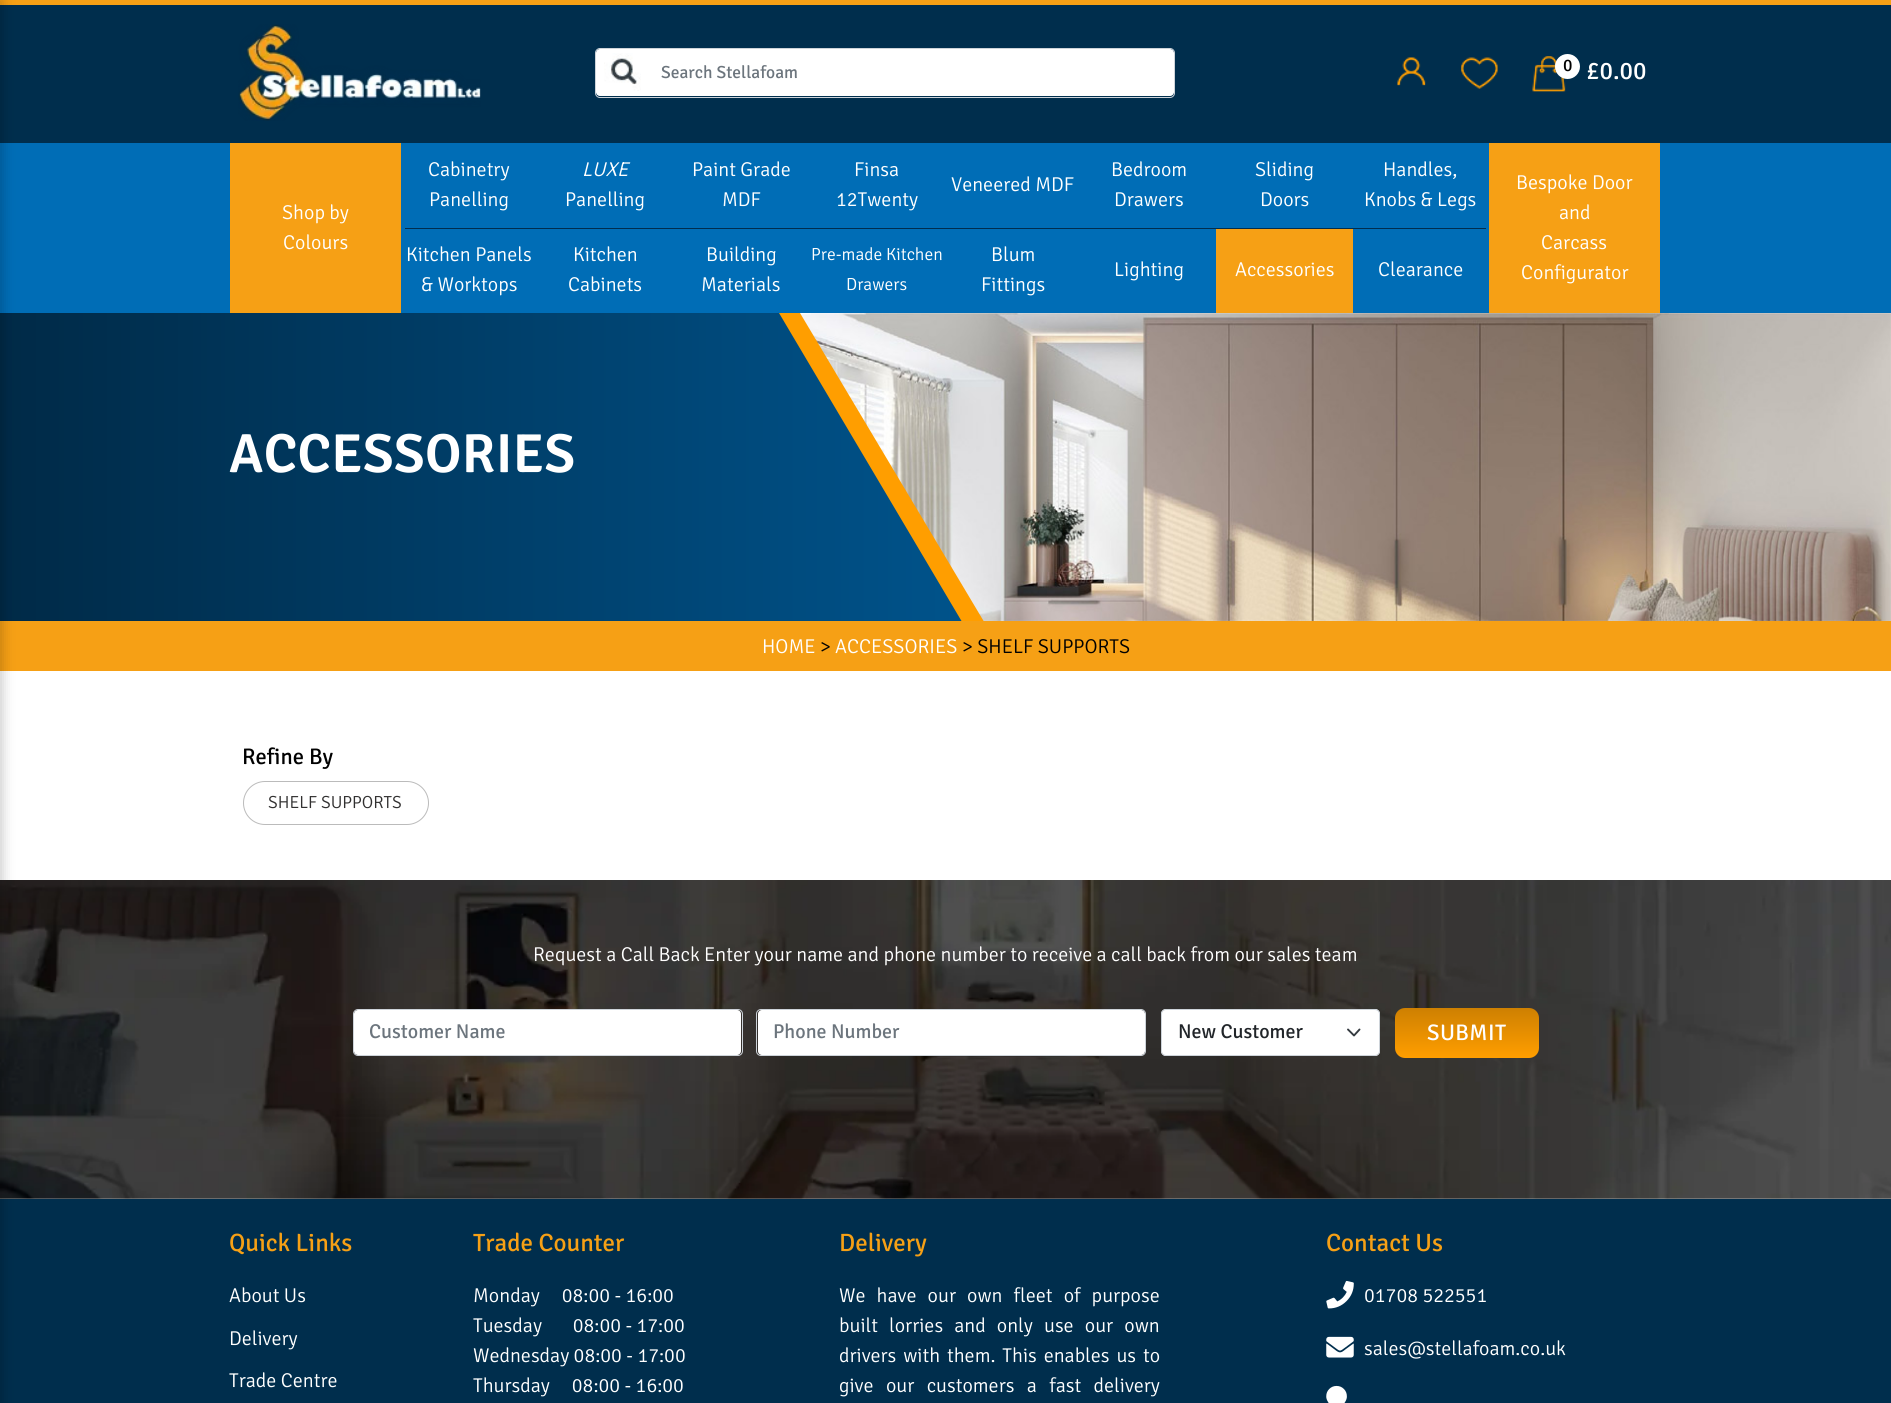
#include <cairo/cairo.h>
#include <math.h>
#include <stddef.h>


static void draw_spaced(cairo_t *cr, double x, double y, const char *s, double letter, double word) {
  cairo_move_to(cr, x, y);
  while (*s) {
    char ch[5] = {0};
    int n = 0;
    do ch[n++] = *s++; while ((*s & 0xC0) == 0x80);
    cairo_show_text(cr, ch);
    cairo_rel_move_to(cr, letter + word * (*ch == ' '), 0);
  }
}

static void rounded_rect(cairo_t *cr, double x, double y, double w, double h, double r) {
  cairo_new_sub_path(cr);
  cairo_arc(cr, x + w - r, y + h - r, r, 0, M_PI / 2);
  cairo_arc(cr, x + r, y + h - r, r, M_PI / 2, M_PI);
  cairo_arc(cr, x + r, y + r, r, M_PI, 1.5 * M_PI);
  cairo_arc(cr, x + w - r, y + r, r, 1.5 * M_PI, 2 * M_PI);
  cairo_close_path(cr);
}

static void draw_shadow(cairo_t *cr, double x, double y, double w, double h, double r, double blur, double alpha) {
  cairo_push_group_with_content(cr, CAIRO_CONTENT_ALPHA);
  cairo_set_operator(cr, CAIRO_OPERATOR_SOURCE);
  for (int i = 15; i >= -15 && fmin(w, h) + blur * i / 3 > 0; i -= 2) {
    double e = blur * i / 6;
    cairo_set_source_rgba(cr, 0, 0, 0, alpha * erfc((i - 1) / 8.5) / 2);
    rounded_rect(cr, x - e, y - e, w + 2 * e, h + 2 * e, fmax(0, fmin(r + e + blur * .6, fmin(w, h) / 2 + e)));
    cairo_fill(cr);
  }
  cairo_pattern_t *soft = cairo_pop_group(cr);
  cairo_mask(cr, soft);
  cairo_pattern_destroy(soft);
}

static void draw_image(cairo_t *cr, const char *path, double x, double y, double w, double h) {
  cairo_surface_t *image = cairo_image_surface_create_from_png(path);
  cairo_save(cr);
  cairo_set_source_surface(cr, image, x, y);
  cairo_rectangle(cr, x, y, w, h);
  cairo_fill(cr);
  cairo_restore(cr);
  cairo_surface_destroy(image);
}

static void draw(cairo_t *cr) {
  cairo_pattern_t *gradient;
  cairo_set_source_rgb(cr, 1, 1, 1);
  cairo_paint(cr);
  cairo_set_source_rgb(cr, 0, 46 / 255.0, 77 / 255.0);
  cairo_rectangle(cr, 0, 5, 1891, 138);
  cairo_fill(cr);
  cairo_set_source_rgb(cr, 246 / 255.0, 160 / 255.0, 21 / 255.0);
  cairo_rectangle(cr, 0, 0, 1891, 5);
  cairo_fill(cr);
  cairo_set_source_rgb(cr, 0, 109 / 255.0, 182 / 255.0);
  cairo_rectangle(cr, 0, 143, 1891, 170);
  cairo_fill(cr);
  draw_image(cr, "images/6.png", 800, 313, 1091, 308);
  cairo_save(cr);
  cairo_rectangle(cr, 0, 313, 1891, 308);
  cairo_clip(cr);
  cairo_set_source_rgb(cr, 1, 158 / 255.0, 0);
  cairo_new_path(cr);
  cairo_move_to(cr, 0, 313);
  cairo_line_to(cr, 0, 875);
  cairo_line_to(cr, 1135, 875);
  cairo_line_to(cr, 800, 313);
  cairo_close_path(cr);
  cairo_fill(cr);
  gradient = cairo_pattern_create_linear(0, 594, 1113, 594);
  cairo_pattern_add_color_stop_rgba(gradient, 0, 0, 42 / 255.0, 71 / 255.0, 1);
  cairo_pattern_add_color_stop_rgba(gradient, 1, 0, 89 / 255.0, 149 / 255.0, 1);
  cairo_set_source(cr, gradient);
  cairo_pattern_destroy(gradient);
  cairo_new_path(cr);
  cairo_move_to(cr, 0, 313);
  cairo_line_to(cr, 0, 875);
  cairo_line_to(cr, 1112, 875);
  cairo_line_to(cr, 779, 313);
  cairo_close_path(cr);
  cairo_fill(cr);
  cairo_restore(cr);
  cairo_set_source_rgb(cr, 246 / 255.0, 160 / 255.0, 21 / 255.0);
  cairo_rectangle(cr, 0, 621, 1891, 50);
  cairo_fill(cr);
  draw_image(cr, "images/7.png", 0, 880, 1891, 319);
  cairo_set_source_rgb(cr, 0, 46 / 255.0, 77 / 255.0);
  cairo_rectangle(cr, 0, 1199, 1891, 204);
  cairo_fill(cr);
  cairo_set_source_rgb(cr, 0, 0, 0);
  draw_shadow(cr, -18, 0, 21, 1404, 0, 6, 0.2);
  draw_image(cr, "images/1.png", 238, 24, 243, 97);
  cairo_set_source_rgb(cr, 1, 1, 1);
  rounded_rect(cr, 596, 49, 578, 47, 4);
  cairo_fill(cr);
  rounded_rect(cr, 595.5, 48.5, 579, 49, 4.5);
  cairo_set_source_rgb(cr, 206 / 255.0, 212 / 255.0, 218 / 255.0);
  cairo_set_line_width(cr, 1);
  cairo_stroke(cr);
  draw_image(cr, "images/2.png", 604, 53, 37, 38);
  draw_image(cr, "images/3.png", 1397, 57, 29, 29);
  draw_image(cr, "images/4.png", 1461, 57, 37, 32);
  draw_image(cr, "images/5.png", 1532, 56, 34, 36);
  cairo_set_source_rgb(cr, 1, 1, 1);
  cairo_arc(cr, 1567.5, 66.5, 12.5, 0, 2 * M_PI);
  cairo_fill(cr);
  cairo_set_source_rgb(cr, 246 / 255.0, 160 / 255.0, 21 / 255.0);
  cairo_rectangle(cr, 230, 143, 171, 170);
  cairo_fill(cr);
  cairo_rectangle(cr, 1216, 229, 137, 84);
  cairo_fill(cr);
  cairo_rectangle(cr, 1489, 143, 171, 170);
  cairo_fill(cr);
  cairo_set_source_rgb(cr, 1 / 255.0, 46 / 255.0, 79 / 255.0);
  cairo_rectangle(cr, 405, 228, 1081, 1);
  cairo_fill(cr);
  rounded_rect(cr, 243.5, 781.5, 185, 43, 21.5);
  cairo_set_source_rgb(cr, 187 / 255.0, 187 / 255.0, 187 / 255.0);
  cairo_stroke(cr);
  cairo_set_source_rgb(cr, 1, 1, 1);
  rounded_rect(cr, 354, 1010, 387, 45, 4);
  cairo_fill(cr);
  rounded_rect(cr, 353.5, 1009.5, 389, 46, 4.5);
  cairo_set_source_rgb(cr, 206 / 255.0, 212 / 255.0, 218 / 255.0);
  cairo_stroke(cr);
  cairo_set_source_rgb(cr, 1, 1, 1);
  rounded_rect(cr, 758, 1010, 387, 45, 4);
  cairo_fill(cr);
  rounded_rect(cr, 756.5, 1009.5, 389, 46, 4.5);
  cairo_set_source_rgb(cr, 206 / 255.0, 212 / 255.0, 218 / 255.0);
  cairo_stroke(cr);
  cairo_set_source_rgb(cr, 1, 1, 1);
  rounded_rect(cr, 1161, 1009, 219, 47, 5);
  cairo_fill(cr);
  cairo_new_path(cr);
  cairo_move_to(cr, 1348, 1029.5);
  cairo_line_to(cr, 1354, 1035.5);
  cairo_line_to(cr, 1359.5, 1029.5);
  cairo_set_source_rgb(cr, 52 / 255.0, 58 / 255.0, 64 / 255.0);
  cairo_set_line_width(cr, 1.9);
  cairo_set_line_cap(cr, CAIRO_LINE_CAP_ROUND);
  cairo_set_line_join(cr, CAIRO_LINE_JOIN_ROUND);
  cairo_stroke(cr);
  rounded_rect(cr, 1161.5, 1009.5, 218, 46, 4.5);
  cairo_set_source_rgb(cr, 206 / 255.0, 212 / 255.0, 218 / 255.0);
  cairo_set_line_width(cr, 1);
  cairo_set_line_cap(cr, CAIRO_LINE_CAP_BUTT);
  cairo_set_line_join(cr, CAIRO_LINE_JOIN_MITER);
  cairo_stroke(cr);
  gradient = cairo_pattern_create_linear(1467, 1008, 1467, 1058);
  cairo_pattern_add_color_stop_rgba(gradient, 0, 206 / 255.0, 128 / 255.0, 1 / 255.0, 1);
  cairo_pattern_add_color_stop_rgba(gradient, 1, 1, 158 / 255.0, 0, 1);
  cairo_set_source(cr, gradient);
  cairo_pattern_destroy(gradient);
  rounded_rect(cr, 1395, 1008, 144, 50, 10);
  cairo_fill(cr);
  draw_image(cr, "images/8.png", 1326, 1280, 28, 29);
  draw_image(cr, "images/9.png", 1326, 1336, 28, 22);
  draw_image(cr, "images/10.png", 1326, 1385, 21, 18);
  cairo_select_font_face(cr, "Signika", CAIRO_FONT_SLANT_NORMAL, CAIRO_FONT_WEIGHT_NORMAL);
  cairo_set_font_size(cr, 17.5);
  cairo_set_source_rgb(cr, 108 / 255.0, 117 / 255.0, 125 / 255.0);
  cairo_move_to(cr, 661, 78);
  cairo_show_text(cr, "Search Stellafoam");
  cairo_set_source_rgb(cr, 1 / 255.0, 1 / 255.0, 1 / 255.0);
  cairo_move_to(cr, 1563, 71);
  cairo_show_text(cr, "0");
  cairo_set_font_size(cr, 25);
  cairo_set_source_rgb(cr, 1, 1, 1);
  cairo_move_to(cr, 1586, 79);
  cairo_show_text(cr, "£0.00");
  cairo_select_font_face(cr, "Signika Light", CAIRO_FONT_SLANT_NORMAL, CAIRO_FONT_WEIGHT_NORMAL);
  cairo_set_font_size(cr, 20);
  cairo_move_to(cr, 282, 219);
  cairo_show_text(cr, "Shop by");
  cairo_move_to(cr, 283, 249);
  cairo_show_text(cr, "Colours");
  cairo_move_to(cr, 428, 176);
  cairo_show_text(cr, "Cabinetry");
  cairo_move_to(cr, 429, 206);
  cairo_show_text(cr, "Panelling");
  cairo_select_font_face(cr, "Signika Light", CAIRO_FONT_SLANT_ITALIC, CAIRO_FONT_WEIGHT_NORMAL);
  cairo_move_to(cr, 582, 176);
  cairo_show_text(cr, "LUXE");
  cairo_select_font_face(cr, "Signika Light", CAIRO_FONT_SLANT_NORMAL, CAIRO_FONT_WEIGHT_NORMAL);
  cairo_move_to(cr, 565, 206);
  cairo_show_text(cr, "Panelling");
  cairo_move_to(cr, 692, 176);
  cairo_show_text(cr, "Paint Grade");
  cairo_move_to(cr, 722, 206);
  cairo_show_text(cr, "MDF");
  cairo_move_to(cr, 854, 176);
  cairo_show_text(cr, "Finsa");
  cairo_move_to(cr, 836, 206);
  cairo_show_text(cr, "12Twenty");
  cairo_move_to(cr, 951, 191);
  cairo_show_text(cr, "Veneered MDF");
  cairo_move_to(cr, 1111, 176);
  cairo_show_text(cr, "Bedroom");
  cairo_move_to(cr, 1114, 206);
  cairo_show_text(cr, "Drawers");
  cairo_move_to(cr, 1255, 176);
  cairo_show_text(cr, "Sliding");
  cairo_move_to(cr, 1260, 206);
  cairo_show_text(cr, "Doors");
  cairo_move_to(cr, 1383, 176);
  cairo_show_text(cr, "Handles,");
  cairo_move_to(cr, 1364, 206);
  cairo_show_text(cr, "Knobs & Legs");
  cairo_move_to(cr, 406, 261);
  cairo_show_text(cr, "Kitchen Panels");
  cairo_move_to(cr, 421, 291);
  cairo_show_text(cr, "& Worktops");
  cairo_move_to(cr, 573, 261);
  cairo_show_text(cr, "Kitchen");
  cairo_move_to(cr, 568, 291);
  cairo_show_text(cr, "Cabinets");
  cairo_move_to(cr, 706, 261);
  cairo_show_text(cr, "Building");
  cairo_move_to(cr, 701, 291);
  cairo_show_text(cr, "Materials");
  cairo_set_font_size(cr, 17.5);
  cairo_move_to(cr, 811, 260);
  cairo_show_text(cr, "Pre-made Kitchen");
  cairo_move_to(cr, 846, 290);
  cairo_show_text(cr, "Drawers");
  cairo_set_font_size(cr, 20);
  cairo_move_to(cr, 991, 261);
  cairo_show_text(cr, "Blum");
  cairo_move_to(cr, 981, 291);
  cairo_show_text(cr, "Fittings");
  cairo_move_to(cr, 1114, 276);
  cairo_show_text(cr, "Lighting");
  cairo_move_to(cr, 1235, 276);
  cairo_show_text(cr, "Accessories");
  cairo_move_to(cr, 1378, 276);
  cairo_show_text(cr, "Clearance");
  cairo_move_to(cr, 1516, 189);
  cairo_show_text(cr, "Bespoke Door");
  cairo_move_to(cr, 1559, 219);
  cairo_show_text(cr, "and");
  cairo_move_to(cr, 1541, 249);
  cairo_show_text(cr, "Carcass");
  cairo_move_to(cr, 1521, 279);
  cairo_show_text(cr, "Configurator");
  cairo_select_font_face(cr, "Signika SemiBold", CAIRO_FONT_SLANT_NORMAL, CAIRO_FONT_WEIGHT_NORMAL);
  cairo_set_font_size(cr, 55);
  draw_spaced(cr, 229, 472, "ACCESSORIES", 0.4, 0);
  cairo_select_font_face(cr, "Signika Light", CAIRO_FONT_SLANT_NORMAL, CAIRO_FONT_WEIGHT_NORMAL);
  cairo_set_font_size(cr, 20);
  cairo_move_to(cr, 762, 653);
  cairo_show_text(cr, "HOME");
  cairo_set_source_rgb(cr, 1 / 255.0, 1 / 255.0, 1 / 255.0);
  cairo_move_to(cr, 820, 653);
  cairo_show_text(cr, ">");
  cairo_set_source_rgb(cr, 1, 1, 1);
  cairo_move_to(cr, 835, 653);
  cairo_show_text(cr, "ACCESSORIES");
  cairo_set_source_rgb(cr, 1 / 255.0, 1 / 255.0, 1 / 255.0);
  cairo_move_to(cr, 962, 653);
  cairo_show_text(cr, "> SHELF SUPPORTS");
  cairo_select_font_face(cr, "Signika", CAIRO_FONT_SLANT_NORMAL, CAIRO_FONT_WEIGHT_NORMAL);
  cairo_set_font_size(cr, 22.5);
  cairo_move_to(cr, 242, 764);
  cairo_show_text(cr, "Refine By");
  cairo_select_font_face(cr, "Signika Light", CAIRO_FONT_SLANT_NORMAL, CAIRO_FONT_WEIGHT_NORMAL);
  cairo_set_font_size(cr, 17.5);
  cairo_set_source_rgb(cr, 49 / 255.0, 48 / 255.0, 48 / 255.0);
  cairo_move_to(cr, 268, 808);
  cairo_show_text(cr, "SHELF SUPPORTS");
  cairo_set_font_size(cr, 20);
  cairo_set_source_rgb(cr, 1, 1, 1);
  cairo_move_to(cr, 533, 961);
  cairo_show_text(cr, "Request a Call Back Enter your name and phone number to receive a call back from our sales team");
  cairo_select_font_face(cr, "Signika", CAIRO_FONT_SLANT_NORMAL, CAIRO_FONT_WEIGHT_NORMAL);
  cairo_set_source_rgb(cr, 108 / 255.0, 117 / 255.0, 125 / 255.0);
  cairo_move_to(cr, 369, 1038);
  cairo_show_text(cr, "Customer Name");
  cairo_move_to(cr, 773, 1038);
  cairo_show_text(cr, "Phone Number");
  cairo_set_source_rgb(cr, 33 / 255.0, 37 / 255.0, 41 / 255.0);
  cairo_move_to(cr, 1178, 1038);
  cairo_show_text(cr, "New Customer");
  cairo_set_font_size(cr, 22.5);
  cairo_set_source_rgb(cr, 1, 1, 1);
  draw_spaced(cr, 1427, 1040, "SUBMIT", 0.4, 0);
  cairo_set_font_size(cr, 25);
  cairo_set_source_rgb(cr, 246 / 255.0, 160 / 255.0, 21 / 255.0);
  cairo_move_to(cr, 229, 1251);
  cairo_show_text(cr, "Quick Links");
  cairo_select_font_face(cr, "Signika Light", CAIRO_FONT_SLANT_NORMAL, CAIRO_FONT_WEIGHT_NORMAL);
  cairo_set_font_size(cr, 20);
  cairo_set_source_rgb(cr, 1, 1, 1);
  cairo_move_to(cr, 229, 1302);
  cairo_show_text(cr, "About Us");
  cairo_move_to(cr, 229, 1345);
  cairo_show_text(cr, "Delivery");
  cairo_move_to(cr, 229, 1387);
  cairo_show_text(cr, "Trade Centre");
  cairo_select_font_face(cr, "Signika", CAIRO_FONT_SLANT_NORMAL, CAIRO_FONT_WEIGHT_NORMAL);
  cairo_set_font_size(cr, 25);
  cairo_set_source_rgb(cr, 246 / 255.0, 160 / 255.0, 21 / 255.0);
  cairo_move_to(cr, 473, 1251);
  cairo_show_text(cr, "Trade Counter");
  cairo_select_font_face(cr, "Signika Light", CAIRO_FONT_SLANT_NORMAL, CAIRO_FONT_WEIGHT_NORMAL);
  cairo_set_font_size(cr, 20);
  cairo_set_source_rgb(cr, 1, 1, 1);
  cairo_move_to(cr, 473, 1302);
  cairo_show_text(cr, "Monday     08:00 - 16:00");
  cairo_move_to(cr, 473, 1332);
  cairo_show_text(cr, "Tuesday       08:00 - 17:00");
  cairo_move_to(cr, 473, 1362);
  cairo_show_text(cr, "Wednesday 08:00 - 17:00");
  cairo_move_to(cr, 473, 1392);
  cairo_show_text(cr, "Thursday     08:00 - 16:00");
  cairo_select_font_face(cr, "Signika", CAIRO_FONT_SLANT_NORMAL, CAIRO_FONT_WEIGHT_NORMAL);
  cairo_set_font_size(cr, 25);
  cairo_set_source_rgb(cr, 246 / 255.0, 160 / 255.0, 21 / 255.0);
  cairo_move_to(cr, 839, 1251);
  cairo_show_text(cr, "Delivery");
  cairo_select_font_face(cr, "Signika Light", CAIRO_FONT_SLANT_NORMAL, CAIRO_FONT_WEIGHT_NORMAL);
  cairo_set_font_size(cr, 20);
  cairo_set_source_rgb(cr, 1, 1, 1);
  draw_spaced(cr, 839, 1302, "We have our own fleet of purpose", 0, 6.75);
  draw_spaced(cr, 839, 1332, "built lorries and only use our own", 0, 6.75);
  draw_spaced(cr, 839, 1362, "drivers with them. This enables us to", 0, 2.5);
  draw_spaced(cr, 839, 1392, "give our customers a fast delivery", 0, 8);
  cairo_select_font_face(cr, "Signika", CAIRO_FONT_SLANT_NORMAL, CAIRO_FONT_WEIGHT_NORMAL);
  cairo_set_font_size(cr, 25);
  cairo_set_source_rgb(cr, 246 / 255.0, 160 / 255.0, 21 / 255.0);
  cairo_move_to(cr, 1326, 1251);
  cairo_show_text(cr, "Contact Us");
  cairo_select_font_face(cr, "Signika Light", CAIRO_FONT_SLANT_NORMAL, CAIRO_FONT_WEIGHT_NORMAL);
  cairo_set_font_size(cr, 20);
  cairo_set_source_rgb(cr, 1, 1, 1);
  cairo_move_to(cr, 1364, 1302);
  cairo_show_text(cr, "01708 522551");
  cairo_move_to(cr, 1364, 1355);
  cairo_show_text(cr, "sales@stellafoam.co.uk");
}

int main(void) {
  cairo_surface_t *surface = cairo_image_surface_create(CAIRO_FORMAT_RGB24, 1891, 1403);
  cairo_t *cr = cairo_create(surface);
  cairo_font_options_t *options = cairo_font_options_create();
  cairo_font_options_set_hint_metrics(options, CAIRO_HINT_METRICS_OFF);
  cairo_font_options_set_hint_style(options, CAIRO_HINT_STYLE_NONE);
  cairo_set_font_options(cr, options);
  cairo_set_miter_limit(cr, 4);
  draw(cr);
  cairo_surface_write_to_png(surface, "out.png");
  cairo_font_options_destroy(options);
  cairo_destroy(cr);
  cairo_surface_destroy(surface);
  return 0;
}
